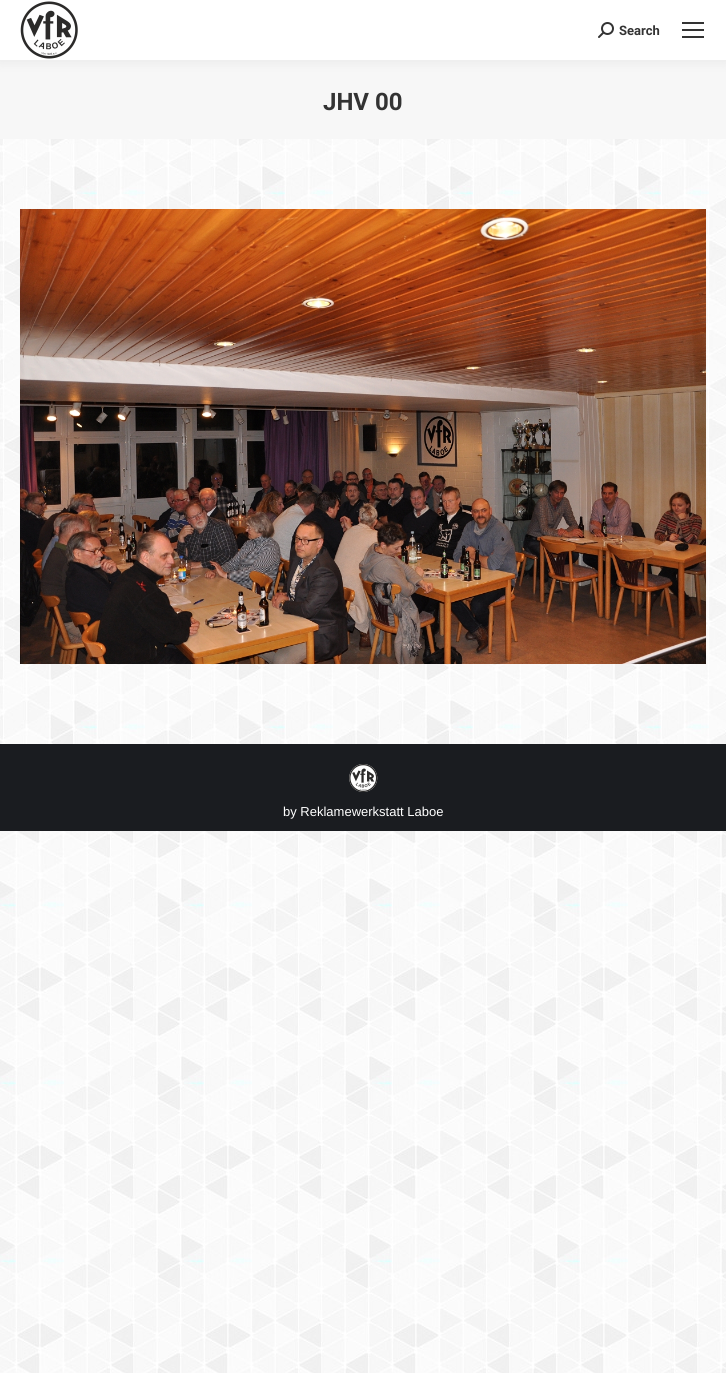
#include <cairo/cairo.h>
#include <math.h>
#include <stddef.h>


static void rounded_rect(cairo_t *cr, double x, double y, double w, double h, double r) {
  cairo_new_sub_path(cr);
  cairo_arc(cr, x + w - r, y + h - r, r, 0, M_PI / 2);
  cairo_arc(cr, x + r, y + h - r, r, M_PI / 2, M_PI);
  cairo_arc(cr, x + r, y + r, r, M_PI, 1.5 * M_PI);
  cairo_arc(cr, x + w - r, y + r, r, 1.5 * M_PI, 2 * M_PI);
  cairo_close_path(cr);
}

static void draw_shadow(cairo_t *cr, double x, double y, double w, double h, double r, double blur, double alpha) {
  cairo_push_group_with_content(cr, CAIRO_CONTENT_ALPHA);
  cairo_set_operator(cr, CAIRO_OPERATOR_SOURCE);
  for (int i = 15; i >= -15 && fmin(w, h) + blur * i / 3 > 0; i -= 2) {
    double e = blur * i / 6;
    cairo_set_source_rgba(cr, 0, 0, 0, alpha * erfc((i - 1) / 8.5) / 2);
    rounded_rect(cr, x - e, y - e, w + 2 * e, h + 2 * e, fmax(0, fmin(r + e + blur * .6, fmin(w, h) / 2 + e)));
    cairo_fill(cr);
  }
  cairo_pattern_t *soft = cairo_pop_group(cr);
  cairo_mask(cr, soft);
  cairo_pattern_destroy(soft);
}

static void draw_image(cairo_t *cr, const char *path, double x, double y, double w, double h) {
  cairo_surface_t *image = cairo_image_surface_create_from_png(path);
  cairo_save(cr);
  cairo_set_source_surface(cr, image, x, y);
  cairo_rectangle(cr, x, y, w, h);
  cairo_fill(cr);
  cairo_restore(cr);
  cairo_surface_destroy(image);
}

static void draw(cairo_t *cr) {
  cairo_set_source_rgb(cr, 1, 1, 1);
  cairo_paint(cr);
  draw_image(cr, "images/1.png", 0, 831, 726, 542);
  draw_image(cr, "images/2.png", 0, 139, 726, 605);
  cairo_set_source_rgb(cr, 247 / 255.0, 247 / 255.0, 247 / 255.0);
  cairo_rectangle(cr, 0, 60, 726, 79);
  cairo_fill(cr);
  cairo_set_source_rgb(cr, 0, 0, 0);
  draw_shadow(cr, -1, -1, 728, 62, 0, 7.5, 0.07);
  cairo_set_source_rgb(cr, 1, 1, 1);
  cairo_rectangle(cr, 0, 0, 726, 60);
  cairo_fill(cr);
  draw_image(cr, "images/3.png", 20, 1, 58, 58);
  draw_image(cr, "images/4.png", 598, 22, 16, 16);
  cairo_set_source_rgb(cr, 51 / 255.0, 51 / 255.0, 51 / 255.0);
  cairo_rectangle(cr, 682, 22, 22, 2);
  cairo_fill(cr);
  cairo_rectangle(cr, 682, 29, 22, 2);
  cairo_fill(cr);
  cairo_rectangle(cr, 682, 36, 22, 2);
  cairo_fill(cr);
  draw_image(cr, "images/5.png", 20, 209, 686, 455);
  cairo_set_source_rgb(cr, 26 / 255.0, 28 / 255.0, 32 / 255.0);
  cairo_rectangle(cr, 0, 744, 726, 87);
  cairo_fill(cr);
  draw_image(cr, "images/6.png", 349, 764, 29, 28);
  cairo_select_font_face(cr, "Roboto", CAIRO_FONT_SLANT_NORMAL, CAIRO_FONT_WEIGHT_BOLD);
  cairo_set_font_size(cr, 13);
  cairo_set_source_rgb(cr, 51 / 255.0, 51 / 255.0, 51 / 255.0);
  cairo_move_to(cr, 619, 35);
  cairo_show_text(cr, "Search");
  cairo_set_font_size(cr, 24);
  cairo_move_to(cr, 323, 110);
  cairo_show_text(cr, "JHV 00");
  cairo_select_font_face(cr, "Liberation Sans", CAIRO_FONT_SLANT_NORMAL, CAIRO_FONT_WEIGHT_NORMAL);
  cairo_set_font_size(cr, 13);
  cairo_set_source_rgb(cr, 1, 1, 1);
  cairo_move_to(cr, 283, 816);
  cairo_show_text(cr, "by Reklamewerkstatt Laboe");
}

int main(void) {
  cairo_surface_t *surface = cairo_image_surface_create(CAIRO_FORMAT_RGB24, 726, 1373);
  cairo_t *cr = cairo_create(surface);
  cairo_font_options_t *options = cairo_font_options_create();
  cairo_font_options_set_hint_metrics(options, CAIRO_HINT_METRICS_OFF);
  cairo_font_options_set_hint_style(options, CAIRO_HINT_STYLE_NONE);
  cairo_set_font_options(cr, options);
  cairo_set_miter_limit(cr, 4);
  draw(cr);
  cairo_surface_write_to_png(surface, "out.png");
  cairo_font_options_destroy(options);
  cairo_destroy(cr);
  cairo_surface_destroy(surface);
  return 0;
}
